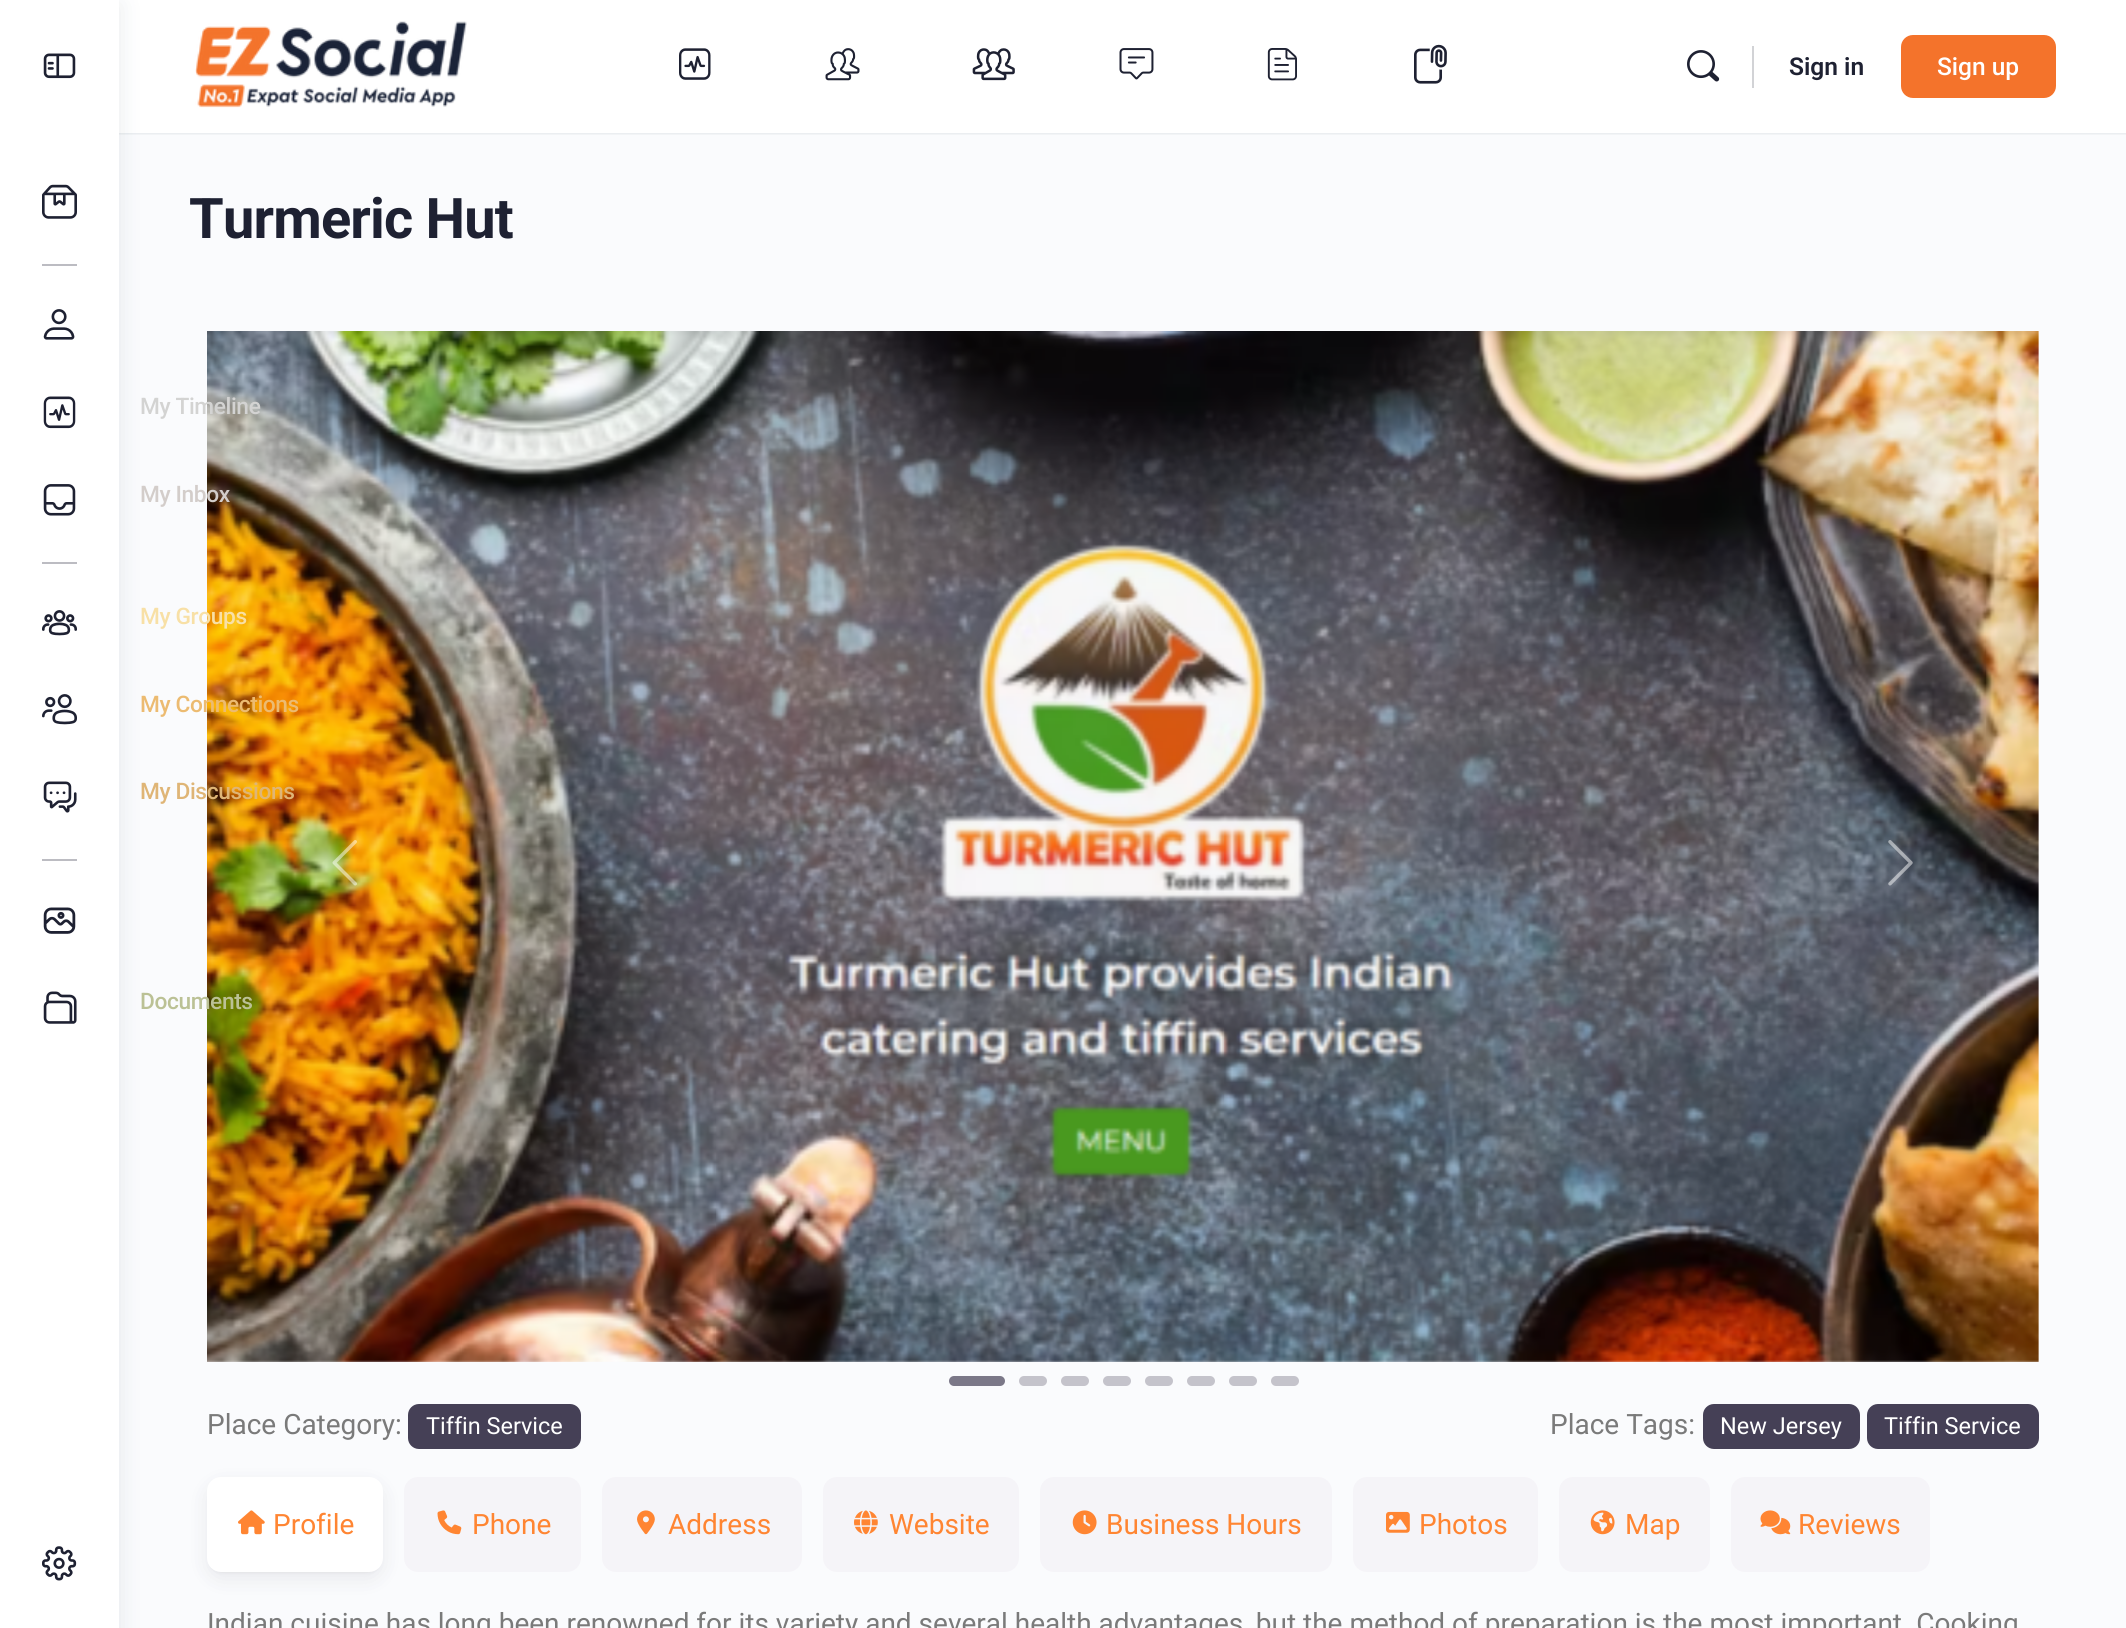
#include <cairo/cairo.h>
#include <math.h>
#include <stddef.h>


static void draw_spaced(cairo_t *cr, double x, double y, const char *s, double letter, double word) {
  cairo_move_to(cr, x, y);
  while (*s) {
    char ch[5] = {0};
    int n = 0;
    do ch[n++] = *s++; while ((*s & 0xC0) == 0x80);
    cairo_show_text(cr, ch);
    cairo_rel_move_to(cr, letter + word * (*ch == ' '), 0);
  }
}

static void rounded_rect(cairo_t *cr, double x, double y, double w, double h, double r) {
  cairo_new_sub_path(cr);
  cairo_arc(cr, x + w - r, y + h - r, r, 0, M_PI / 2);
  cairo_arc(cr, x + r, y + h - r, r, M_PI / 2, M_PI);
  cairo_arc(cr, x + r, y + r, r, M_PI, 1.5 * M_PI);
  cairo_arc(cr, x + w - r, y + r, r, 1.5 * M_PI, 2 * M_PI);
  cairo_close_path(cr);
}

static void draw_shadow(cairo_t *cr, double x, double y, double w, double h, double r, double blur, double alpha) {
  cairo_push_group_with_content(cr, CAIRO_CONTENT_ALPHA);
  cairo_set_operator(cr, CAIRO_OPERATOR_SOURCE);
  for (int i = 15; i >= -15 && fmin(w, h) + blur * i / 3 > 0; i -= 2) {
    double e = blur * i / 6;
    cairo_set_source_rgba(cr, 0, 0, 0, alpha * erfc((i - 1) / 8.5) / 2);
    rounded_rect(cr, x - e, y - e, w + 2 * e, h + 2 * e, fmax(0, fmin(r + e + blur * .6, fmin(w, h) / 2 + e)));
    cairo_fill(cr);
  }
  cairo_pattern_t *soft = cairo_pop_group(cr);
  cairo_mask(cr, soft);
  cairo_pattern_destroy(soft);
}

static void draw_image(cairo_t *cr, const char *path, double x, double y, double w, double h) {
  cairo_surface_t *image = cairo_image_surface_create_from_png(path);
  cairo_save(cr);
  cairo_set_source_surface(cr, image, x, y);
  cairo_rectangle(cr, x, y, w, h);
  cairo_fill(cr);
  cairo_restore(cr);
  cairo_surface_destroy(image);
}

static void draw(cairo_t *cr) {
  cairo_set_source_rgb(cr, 250 / 255.0, 251 / 255.0, 253 / 255.0);
  cairo_paint(cr);
  cairo_set_source_rgb(cr, 65 / 255.0, 71 / 255.0, 108 / 255.0);
  draw_shadow(cr, 119, 0, 2007, 133, 0, 1, 0.15);
  cairo_set_source_rgba(cr, 139 / 255.0, 141 / 255.0, 157 / 255.0, 0.05);
  cairo_rectangle(cr, 119, 133, 2007, 2);
  cairo_fill(cr);
  cairo_set_source_rgb(cr, 1, 1, 1);
  cairo_rectangle(cr, 119, 0, 2007, 133);
  cairo_fill(cr);
  draw_image(cr, "images/1.png", 195, 21, 272, 87);
  draw_image(cr, "images/2.png", 679, 48, 32, 32);
  draw_image(cr, "images/3.png", 825, 48, 35, 33);
  draw_image(cr, "images/4.png", 972, 48, 43, 33);
  draw_image(cr, "images/5.png", 1119, 48, 35, 32);
  draw_image(cr, "images/6.png", 1267, 48, 30, 33);
  draw_image(cr, "images/7.png", 1414, 44, 33, 40);
  draw_image(cr, "images/8.png", 1687, 50, 33, 32);
  cairo_set_source_rgb(cr, 210 / 255.0, 211 / 255.0, 214 / 255.0);
  cairo_rectangle(cr, 1752, 46, 2, 42);
  cairo_fill(cr);
  cairo_set_source_rgb(cr, 244 / 255.0, 115 / 255.0, 43 / 255.0);
  rounded_rect(cr, 1902, 36, 153, 61, 11);
  cairo_fill_preserve(cr);
  cairo_stroke(cr);
  draw_image(cr, "images/9.png", 207, 331, 1832, 1031);
  draw_image(cr, "images/10.png", 332, 840, 25, 46);
  draw_image(cr, "images/11.png", 1888, 840, 25, 46);
  cairo_set_source_rgb(cr, 123 / 255.0, 120 / 255.0, 136 / 255.0);
  rounded_rect(cr, 949, 1376, 56, 10, 5);
  cairo_fill(cr);
  cairo_set_source_rgb(cr, 196 / 255.0, 195 / 255.0, 203 / 255.0);
  rounded_rect(cr, 1019, 1376, 28, 10, 5);
  cairo_fill(cr);
  rounded_rect(cr, 1061, 1376, 28, 10, 5);
  cairo_fill(cr);
  rounded_rect(cr, 1103, 1376, 28, 10, 5);
  cairo_fill(cr);
  rounded_rect(cr, 1145, 1376, 28, 10, 5);
  cairo_fill(cr);
  rounded_rect(cr, 1187, 1376, 28, 10, 5);
  cairo_fill(cr);
  rounded_rect(cr, 1229, 1376, 28, 10, 5);
  cairo_fill(cr);
  rounded_rect(cr, 1271, 1376, 28, 10, 5);
  cairo_fill(cr);
  cairo_set_source_rgb(cr, 69 / 255.0, 64 / 255.0, 86 / 255.0);
  rounded_rect(cr, 408, 1404, 173, 45, 11);
  cairo_fill(cr);
  rounded_rect(cr, 1703, 1404, 157, 45, 11);
  cairo_fill(cr);
  rounded_rect(cr, 1867, 1404, 172, 45, 11);
  cairo_fill(cr);
  cairo_set_source_rgb(cr, 31 / 255.0, 27 / 255.0, 45 / 255.0);
  draw_shadow(cr, 207, 1484, 176, 95, 14, 10.5, 0.08);
  draw_shadow(cr, 210, 1484, 170, 88, 11, 2, 0.08);
  cairo_set_source_rgb(cr, 1, 1, 1);
  rounded_rect(cr, 207, 1477, 176, 95, 14);
  cairo_fill(cr);
  draw_image(cr, "images/12.png", 238, 1510, 27, 25);
  cairo_set_source_rgb(cr, 245 / 255.0, 244 / 255.0, 248 / 255.0);
  rounded_rect(cr, 404, 1477, 177, 95, 14);
  cairo_fill(cr);
  draw_image(cr, "images/13.png", 437, 1510, 25, 25);
  rounded_rect(cr, 602, 1477, 200, 95, 14);
  cairo_fill(cr);
  draw_image(cr, "images/14.png", 637, 1510, 18, 25);
  rounded_rect(cr, 823, 1477, 196, 95, 14);
  cairo_fill(cr);
  draw_image(cr, "images/15.png", 854, 1510, 24, 25);
  rounded_rect(cr, 1040, 1477, 292, 95, 14);
  cairo_fill(cr);
  draw_image(cr, "images/16.png", 1072, 1510, 25, 25);
  rounded_rect(cr, 1353, 1477, 185, 95, 14);
  cairo_fill(cr);
  draw_image(cr, "images/17.png", 1386, 1511, 24, 22);
  rounded_rect(cr, 1559, 1477, 151, 95, 14);
  cairo_fill(cr);
  draw_image(cr, "images/18.png", 1590, 1510, 25, 25);
  rounded_rect(cr, 1731, 1477, 199, 95, 14);
  cairo_fill(cr);
  draw_image(cr, "images/19.png", 1760, 1510, 31, 25);
  cairo_set_source_rgb(cr, 18 / 255.0, 43 / 255.0, 70 / 255.0);
  draw_shadow(cr, 0, 5, 119, 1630, 0, 11.5, 0.1);
  cairo_set_source_rgb(cr, 1, 1, 1);
  cairo_rectangle(cr, 0, 0, 119, 1628);
  cairo_fill(cr);
  draw_image(cr, "images/20.png", 43, 53, 33, 26);
  draw_image(cr, "images/21.png", 42, 184, 35, 35);
  cairo_set_source_rgb(cr, 188 / 255.0, 188 / 255.0, 194 / 255.0);
  cairo_rectangle(cr, 42, 264, 35, 2);
  cairo_fill(cr);
  draw_image(cr, "images/22.png", 43, 309, 32, 31);
  draw_image(cr, "images/23.png", 43, 396, 33, 33);
  draw_image(cr, "images/24.png", 43, 484, 33, 32);
  cairo_rectangle(cr, 42, 562, 35, 2);
  cairo_fill(cr);
  draw_image(cr, "images/25.png", 42, 610, 35, 26);
  draw_image(cr, "images/26.png", 42, 694, 35, 31);
  draw_image(cr, "images/27.png", 43, 781, 34, 32);
  cairo_rectangle(cr, 42, 859, 35, 2);
  cairo_fill(cr);
  draw_image(cr, "images/28.png", 43, 907, 33, 27);
  draw_image(cr, "images/29.png", 43, 991, 34, 33);
  draw_image(cr, "images/30.png", 42, 1546, 35, 35);
  cairo_select_font_face(cr, "Roboto SemiBold", CAIRO_FONT_SLANT_NORMAL, CAIRO_FONT_WEIGHT_NORMAL);
  cairo_set_font_size(cr, 24.5);
  cairo_set_source_rgb(cr, 30 / 255.0, 33 / 255.0, 50 / 255.0);
  cairo_move_to(cr, 1789, 75);
  cairo_show_text(cr, "Sign in");
  cairo_select_font_face(cr, "Roboto Medium", CAIRO_FONT_SLANT_NORMAL, CAIRO_FONT_WEIGHT_NORMAL);
  cairo_set_source_rgb(cr, 1, 1, 1);
  cairo_move_to(cr, 1937, 75);
  cairo_show_text(cr, "Sign up");
  cairo_select_font_face(cr, "Roboto", CAIRO_FONT_SLANT_NORMAL, CAIRO_FONT_WEIGHT_BOLD);
  cairo_set_font_size(cr, 56);
  cairo_set_source_rgb(cr, 30 / 255.0, 33 / 255.0, 50 / 255.0);
  draw_spaced(cr, 189, 238, "Turmeric Hut", -0.8, 0);
  cairo_select_font_face(cr, "Roboto", CAIRO_FONT_SLANT_NORMAL, CAIRO_FONT_WEIGHT_NORMAL);
  cairo_set_font_size(cr, 28);
  cairo_set_source_rgb(cr, 122 / 255.0, 122 / 255.0, 122 / 255.0);
  cairo_move_to(cr, 207, 1434);
  cairo_show_text(cr, "Place Category:");
  cairo_set_font_size(cr, 23.5);
  cairo_set_source_rgb(cr, 1, 1, 1);
  cairo_move_to(cr, 426, 1434);
  cairo_show_text(cr, "Tiffin Service");
  cairo_set_font_size(cr, 28);
  cairo_set_source_rgb(cr, 122 / 255.0, 122 / 255.0, 122 / 255.0);
  cairo_move_to(cr, 1550, 1434);
  cairo_show_text(cr, "Place Tags:");
  cairo_set_font_size(cr, 23.5);
  cairo_set_source_rgb(cr, 1, 1, 1);
  cairo_move_to(cr, 1720, 1434);
  cairo_show_text(cr, "New Jersey");
  cairo_move_to(cr, 1884, 1434);
  cairo_show_text(cr, "Tiffin Service");
  cairo_set_font_size(cr, 28);
  cairo_set_source_rgb(cr, 1, 133 / 255.0, 50 / 255.0);
  cairo_move_to(cr, 273, 1534);
  cairo_show_text(cr, "Profile");
  cairo_move_to(cr, 472, 1534);
  cairo_show_text(cr, "Phone");
  cairo_move_to(cr, 668, 1534);
  cairo_show_text(cr, "Address");
  cairo_move_to(cr, 889, 1534);
  cairo_show_text(cr, "Website");
  cairo_move_to(cr, 1106, 1534);
  cairo_show_text(cr, "Business Hours");
  cairo_move_to(cr, 1419, 1534);
  cairo_show_text(cr, "Photos");
  cairo_move_to(cr, 1625, 1534);
  cairo_show_text(cr, "Map");
  cairo_move_to(cr, 1798, 1534);
  cairo_show_text(cr, "Reviews");
  cairo_set_source_rgb(cr, 122 / 255.0, 122 / 255.0, 122 / 255.0);
  cairo_move_to(cr, 207, 1633);
  cairo_show_text(cr, "Indian cuisine has long been renowned for its variety and several health advantages, but the method of preparation is the most important. Cooking");
  cairo_select_font_face(cr, "Roboto Medium", CAIRO_FONT_SLANT_NORMAL, CAIRO_FONT_WEIGHT_NORMAL);
  cairo_set_font_size(cr, 22.75);
  cairo_set_source_rgb(cr, 211 / 255.0, 211 / 255.0, 210 / 255.0);
  draw_spaced(cr, 140, 414, "My Timeline", -0.4, 0);
  cairo_set_source_rgb(cr, 211 / 255.0, 205 / 255.0, 202 / 255.0);
  draw_spaced(cr, 140, 502, "My Inbox", -0.4, 0);
  cairo_set_source_rgb(cr, 248 / 255.0, 224 / 255.0, 166 / 255.0);
  draw_spaced(cr, 140, 624, "My Groups", -0.4, 0);
  cairo_set_source_rgb(cr, 236 / 255.0, 187 / 255.0, 113 / 255.0);
  draw_spaced(cr, 140, 712, "My Connections", -0.4, 0);
  cairo_set_source_rgb(cr, 223 / 255.0, 181 / 255.0, 118 / 255.0);
  draw_spaced(cr, 140, 799, "My Discussions", -0.4, 0);
  cairo_set_source_rgb(cr, 187 / 255.0, 193 / 255.0, 149 / 255.0);
  draw_spaced(cr, 140, 1009, "Documents", -0.4, 0);
}

int main(void) {
  cairo_surface_t *surface = cairo_image_surface_create(CAIRO_FORMAT_RGB24, 2126, 1628);
  cairo_t *cr = cairo_create(surface);
  cairo_font_options_t *options = cairo_font_options_create();
  cairo_font_options_set_hint_metrics(options, CAIRO_HINT_METRICS_OFF);
  cairo_font_options_set_hint_style(options, CAIRO_HINT_STYLE_NONE);
  cairo_set_font_options(cr, options);
  cairo_set_miter_limit(cr, 4);
  draw(cr);
  cairo_surface_write_to_png(surface, "out.png");
  cairo_font_options_destroy(options);
  cairo_destroy(cr);
  cairo_surface_destroy(surface);
  return 0;
}
